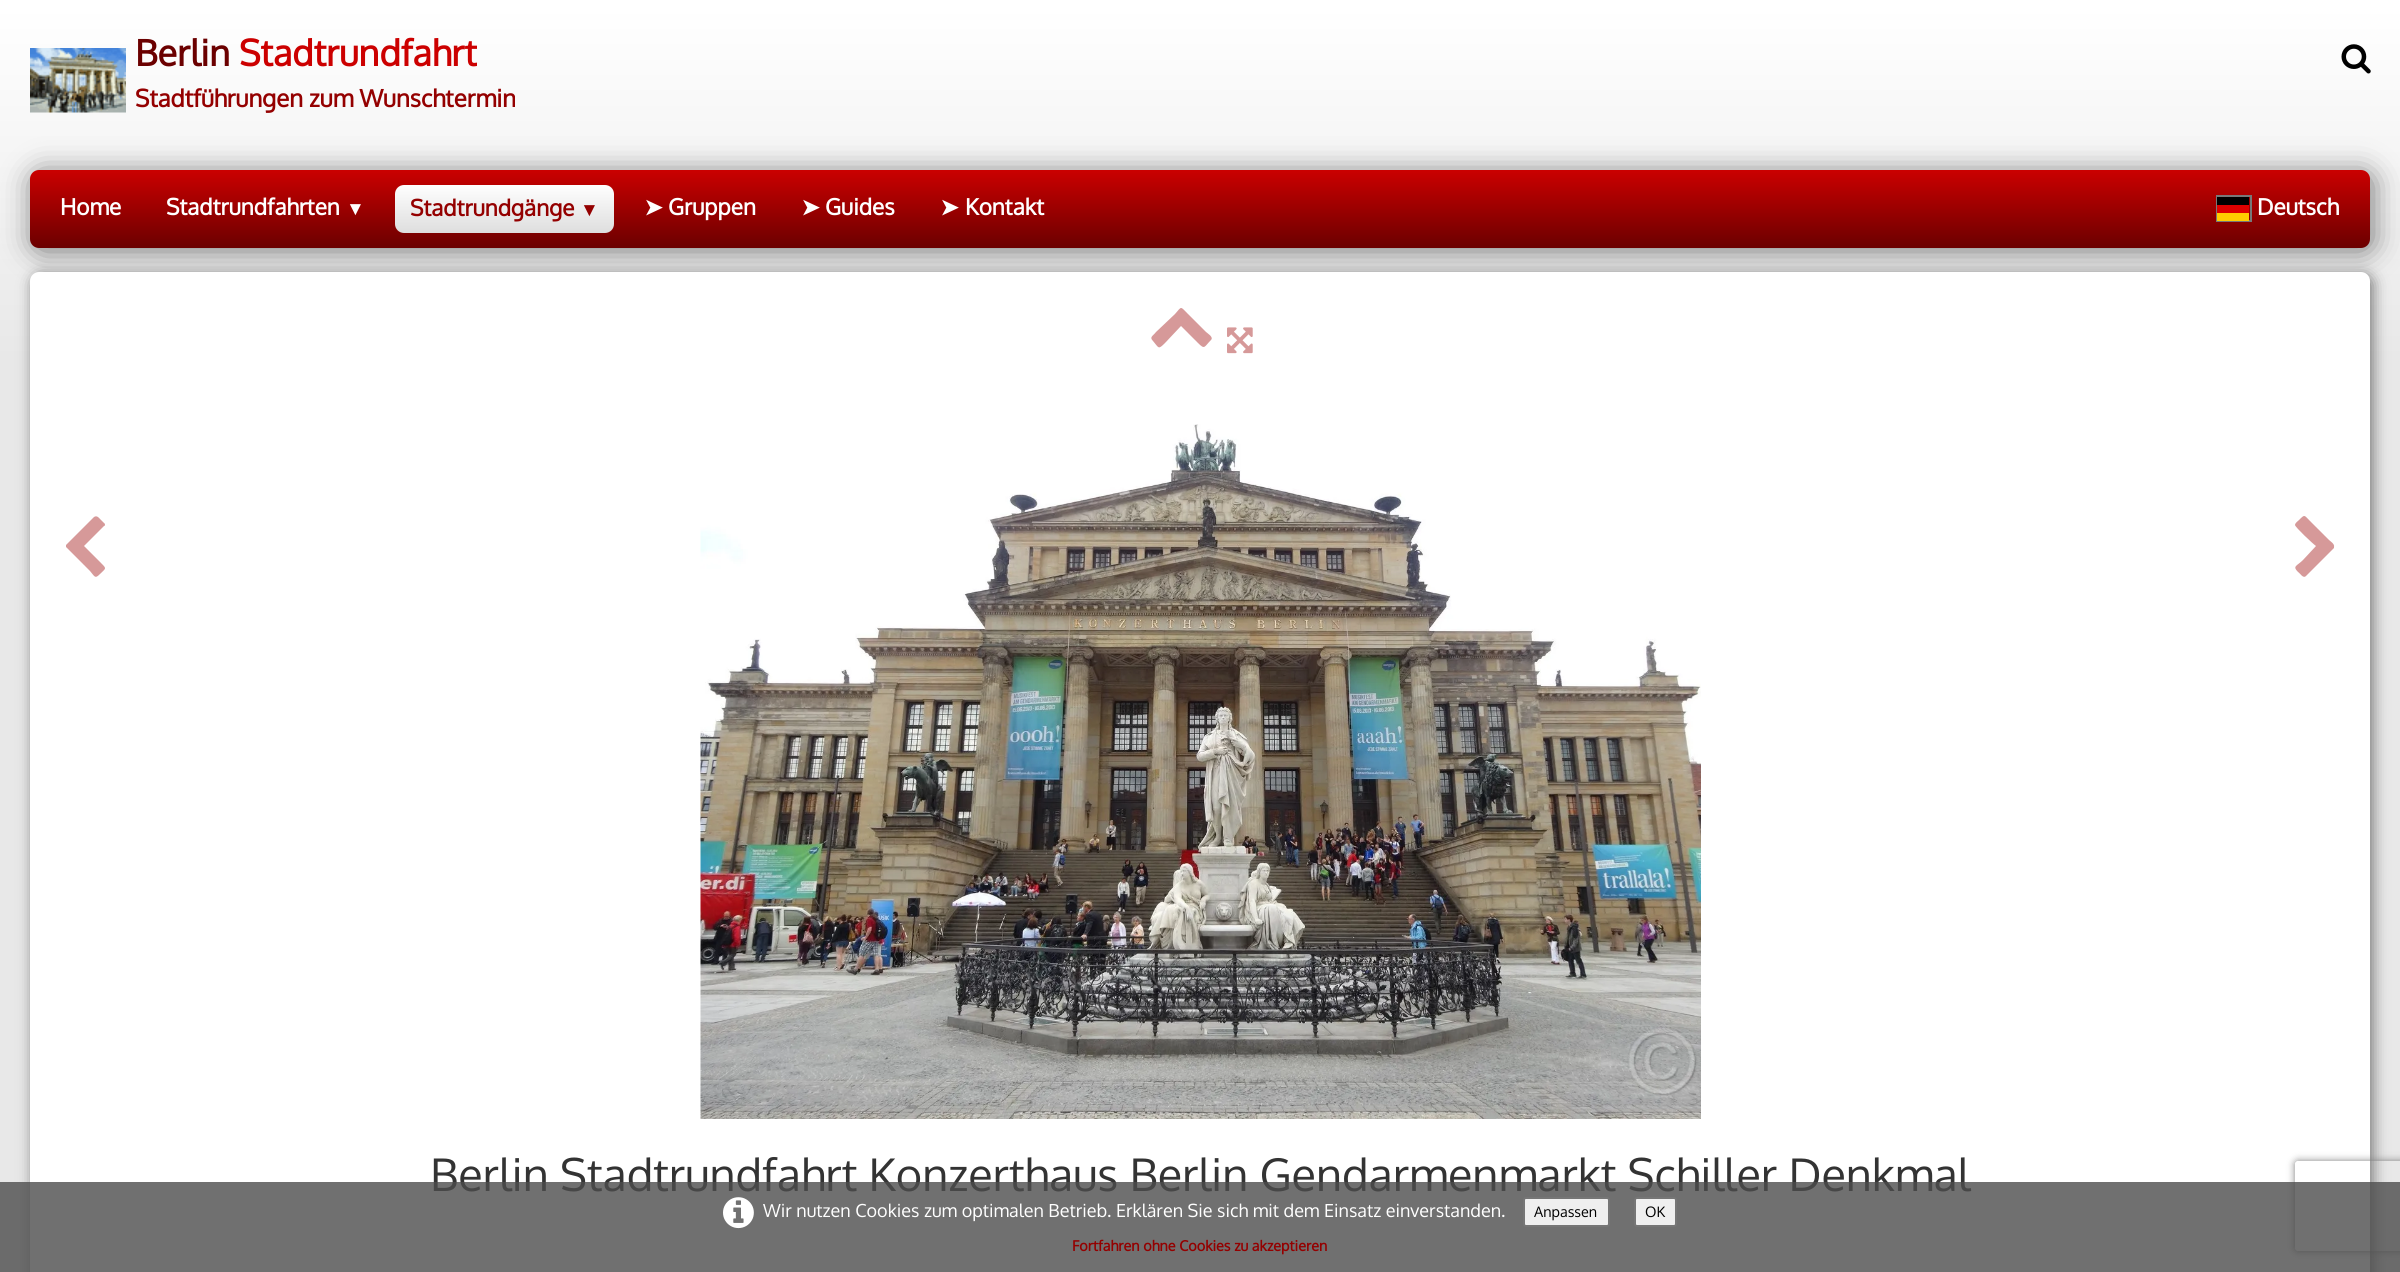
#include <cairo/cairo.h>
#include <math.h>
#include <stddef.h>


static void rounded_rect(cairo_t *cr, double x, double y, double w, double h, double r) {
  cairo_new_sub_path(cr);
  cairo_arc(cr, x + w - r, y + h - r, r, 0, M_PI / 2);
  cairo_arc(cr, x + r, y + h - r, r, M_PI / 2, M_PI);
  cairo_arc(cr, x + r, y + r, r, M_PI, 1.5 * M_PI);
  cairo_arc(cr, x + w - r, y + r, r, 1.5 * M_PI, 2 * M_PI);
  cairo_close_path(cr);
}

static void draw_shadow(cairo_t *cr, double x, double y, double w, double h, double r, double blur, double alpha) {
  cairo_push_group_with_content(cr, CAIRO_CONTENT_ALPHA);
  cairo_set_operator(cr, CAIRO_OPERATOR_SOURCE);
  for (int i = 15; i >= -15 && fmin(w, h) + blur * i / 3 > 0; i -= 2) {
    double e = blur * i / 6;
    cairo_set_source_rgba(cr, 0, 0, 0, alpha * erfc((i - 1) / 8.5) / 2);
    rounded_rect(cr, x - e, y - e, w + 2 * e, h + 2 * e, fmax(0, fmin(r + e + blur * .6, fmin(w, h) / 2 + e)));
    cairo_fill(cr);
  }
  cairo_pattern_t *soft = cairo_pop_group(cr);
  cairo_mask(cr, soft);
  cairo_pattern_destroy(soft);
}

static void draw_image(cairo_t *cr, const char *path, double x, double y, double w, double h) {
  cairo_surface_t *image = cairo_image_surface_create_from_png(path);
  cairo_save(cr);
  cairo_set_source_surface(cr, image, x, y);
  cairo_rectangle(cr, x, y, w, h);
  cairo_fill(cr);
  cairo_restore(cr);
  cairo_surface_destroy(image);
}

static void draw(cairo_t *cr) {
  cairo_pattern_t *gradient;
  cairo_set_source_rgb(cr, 1, 1, 1);
  cairo_paint(cr);
  gradient = cairo_pattern_create_linear(1200, 6, 1200, 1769);
  cairo_pattern_add_color_stop_rgba(gradient, 0, 1, 1, 1, 1);
  cairo_pattern_add_color_stop_rgba(gradient, 0.2, 232 / 255.0, 232 / 255.0, 232 / 255.0, 1);
  cairo_set_source(cr, gradient);
  cairo_pattern_destroy(gradient);
  rounded_rect(cr, 0, 6, 2400, 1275, 9);
  cairo_fill(cr);
  draw_image(cr, "images/1.png", 30, 48, 96, 65);
  draw_image(cr, "images/2.png", 2341, 44, 30, 30);
  cairo_set_source_rgb(cr, 0, 0, 0);
  draw_shadow(cr, 33, 173, 2340, 78, 9, 15, 0.5);
  gradient = cairo_pattern_create_linear(1200, 169, 1200, 248);
  cairo_pattern_add_color_stop_rgba(gradient, 0, 204 / 255.0, 0, 0, 1);
  cairo_pattern_add_color_stop_rgba(gradient, 1, 107 / 255.0, 0, 0, 1);
  cairo_set_source(cr, gradient);
  cairo_pattern_destroy(gradient);
  rounded_rect(cr, 30, 170, 2340, 78, 9);
  cairo_fill(cr);
  gradient = cairo_pattern_create_linear(504, 184, 504, 233);
  cairo_pattern_add_color_stop_rgba(gradient, 0, 1, 1, 1, 1);
  cairo_pattern_add_color_stop_rgba(gradient, 1, 222 / 255.0, 222 / 255.0, 222 / 255.0, 1);
  cairo_set_source(cr, gradient);
  cairo_pattern_destroy(gradient);
  rounded_rect(cr, 395, 185, 219, 48, 9);
  cairo_fill(cr);
  cairo_rectangle(cr, 2217, 196, 34, 25);
  cairo_set_source_rgb(cr, 120 / 255.0, 120 / 255.0, 120 / 255.0);
  cairo_stroke(cr);
  cairo_set_source_rgb(cr, 1, 206 / 255.0, 0);
  cairo_rectangle(cr, 2217, 213, 32, 8);
  cairo_fill(cr);
  cairo_set_source_rgb(cr, 0, 0, 0);
  cairo_rectangle(cr, 2217, 197, 32, 8);
  cairo_fill(cr);
  cairo_set_source_rgb(cr, 221 / 255.0, 0, 0);
  cairo_rectangle(cr, 2217, 205, 32, 8);
  cairo_fill(cr);
  gradient = cairo_pattern_create_linear(1200, 271, 1200, 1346);
  cairo_pattern_add_color_stop_rgba(gradient, 0, 235 / 255.0, 235 / 255.0, 235 / 255.0, 1);
  cairo_pattern_add_color_stop_rgba(gradient, 0.2, 1, 1, 1, 1);
  cairo_set_source(cr, gradient);
  cairo_pattern_destroy(gradient);
  cairo_rectangle(cr, 40, 272, 2326, 7);
  cairo_fill(cr);
  cairo_set_source_rgb(cr, 0, 0, 0);
  draw_shadow(cr, 33, 275, 2340, 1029, 9, 7.5, 0.5);
  cairo_set_source_rgb(cr, 1, 1, 1);
  rounded_rect(cr, 30, 272, 2340, 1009, 9);
  cairo_fill(cr);
  cairo_set_source_rgb(cr, 214 / 255.0, 153 / 255.0, 153 / 255.0);
  cairo_new_path(cr);
  cairo_move_to(cr, 1211, 340);
  cairo_curve_to(cr, 1204, 347, 1205, 350, 1198, 343);
  cairo_line_to(cr, 1181, 326);
  cairo_line_to(cr, 1165, 343);
  cairo_curve_to(cr, 1158, 350, 1159, 348, 1153, 341);
  cairo_curve_to(cr, 1149, 337, 1153, 336, 1156, 332);
  cairo_line_to(cr, 1175, 314);
  cairo_curve_to(cr, 1182, 306, 1180, 306, 1188, 314);
  cairo_line_to(cr, 1206, 332);
  cairo_curve_to(cr, 1207, 333, 1214, 337, 1211, 340);
  cairo_close_path(cr);
  cairo_fill(cr);
  draw_image(cr, "images/3.png", 1227, 327, 26, 27);
  cairo_new_path(cr);
  cairo_move_to(cr, 104, 526);
  cairo_line_to(cr, 84, 546);
  cairo_line_to(cr, 101, 563);
  cairo_curve_to(cr, 107, 569, 106, 568, 100, 574);
  cairo_curve_to(cr, 95, 579, 95, 577, 90, 571);
  cairo_line_to(cr, 66, 547);
  cairo_line_to(cr, 66, 545);
  cairo_line_to(cr, 94, 517);
  cairo_curve_to(cr, 97, 515, 99, 518, 100, 519);
  cairo_line_to(cr, 105, 524);
  cairo_curve_to(cr, 105, 525, 105, 526, 104, 526);
  cairo_close_path(cr);
  cairo_fill(cr);
  draw_image(cr, "images/4.png", 700, 424, 1001, 695);
  cairo_new_path(cr);
  cairo_move_to(cr, 2334, 548);
  cairo_line_to(cr, 2306, 576);
  cairo_curve_to(cr, 2303, 579, 2300, 573, 2298, 572);
  cairo_curve_to(cr, 2292, 566, 2297, 566, 2303, 560);
  cairo_line_to(cr, 2316, 546);
  cairo_curve_to(cr, 2313, 544, 2295, 527, 2295, 525);
  cairo_curve_to(cr, 2295, 523, 2298, 521, 2299, 520);
  cairo_curve_to(cr, 2305, 514, 2304, 515, 2310, 521);
  cairo_line_to(cr, 2329, 540);
  cairo_curve_to(cr, 2330, 541, 2335, 544, 2334, 547);
  cairo_close_path(cr);
  cairo_fill(cr);
  cairo_save(cr);
  cairo_set_fill_rule(cr, CAIRO_FILL_RULE_EVEN_ODD);
  cairo_new_path(cr);
  cairo_move_to(cr, 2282, 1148);
  cairo_line_to(cr, 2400, 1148);
  cairo_line_to(cr, 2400, 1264);
  cairo_line_to(cr, 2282, 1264);
  cairo_close_path(cr);
  cairo_move_to(cr, 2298, 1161);
  cairo_line_to(cr, 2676, 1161);
  cairo_curve_to(cr, 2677.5, 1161, 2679, 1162.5, 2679, 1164);
  cairo_line_to(cr, 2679, 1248);
  cairo_curve_to(cr, 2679, 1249.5, 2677.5, 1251, 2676, 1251);
  cairo_line_to(cr, 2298, 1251);
  cairo_curve_to(cr, 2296.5, 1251, 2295, 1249.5, 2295, 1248);
  cairo_line_to(cr, 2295, 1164);
  cairo_curve_to(cr, 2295, 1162.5, 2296.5, 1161, 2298, 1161);
  cairo_close_path(cr);
  cairo_clip(cr);
  cairo_set_source_rgb(cr, 128 / 255.0, 128 / 255.0, 128 / 255.0);
  draw_shadow(cr, 2295, 1161, 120, 90, 3, 4, 1);
  cairo_restore(cr);
  cairo_select_font_face(cr, "Oxygen", CAIRO_FONT_SLANT_NORMAL, CAIRO_FONT_WEIGHT_BOLD);
  cairo_set_font_size(cr, 36);
  cairo_set_source_rgb(cr, 107 / 255.0, 0, 0);
  cairo_move_to(cr, 135, 66);
  cairo_show_text(cr, "Berlin");
  cairo_set_source_rgb(cr, 204 / 255.0, 0, 0);
  cairo_move_to(cr, 239, 66);
  cairo_show_text(cr, "Stadtrundfahrt");
  cairo_set_font_size(cr, 24);
  cairo_set_source_rgb(cr, 148 / 255.0, 0, 0);
  cairo_move_to(cr, 135, 107);
  cairo_show_text(cr, "Stadtführungen zum Wunschtermin");
  cairo_set_font_size(cr, 22.5);
  cairo_set_source_rgb(cr, 1, 1, 1);
  cairo_move_to(cr, 60, 215);
  cairo_show_text(cr, "Home");
  cairo_move_to(cr, 166, 215);
  cairo_show_text(cr, "Stadtrundfahrten");
  cairo_select_font_face(cr, "Liberation Serif", CAIRO_FONT_SLANT_NORMAL, CAIRO_FONT_WEIGHT_BOLD);
  cairo_set_font_size(cr, 19);
  cairo_move_to(cr, 346, 215);
  cairo_show_text(cr, "▼");
  cairo_select_font_face(cr, "Oxygen", CAIRO_FONT_SLANT_NORMAL, CAIRO_FONT_WEIGHT_BOLD);
  cairo_set_font_size(cr, 22.5);
  cairo_set_source_rgb(cr, 148 / 255.0, 0, 0);
  cairo_move_to(cr, 410, 216);
  cairo_show_text(cr, "Stadtrundgänge");
  cairo_select_font_face(cr, "Liberation Serif", CAIRO_FONT_SLANT_NORMAL, CAIRO_FONT_WEIGHT_BOLD);
  cairo_set_font_size(cr, 19);
  cairo_move_to(cr, 580, 216);
  cairo_show_text(cr, "▼");
  cairo_select_font_face(cr, "DejaVu Sans", CAIRO_FONT_SLANT_NORMAL, CAIRO_FONT_WEIGHT_BOLD);
  cairo_set_font_size(cr, 22.5);
  cairo_set_source_rgb(cr, 1, 1, 1);
  cairo_move_to(cr, 644, 215);
  cairo_show_text(cr, "➤");
  cairo_select_font_face(cr, "Oxygen", CAIRO_FONT_SLANT_NORMAL, CAIRO_FONT_WEIGHT_BOLD);
  cairo_move_to(cr, 668, 215);
  cairo_show_text(cr, "Gruppen");
  cairo_select_font_face(cr, "DejaVu Sans", CAIRO_FONT_SLANT_NORMAL, CAIRO_FONT_WEIGHT_BOLD);
  cairo_move_to(cr, 801, 215);
  cairo_show_text(cr, "➤");
  cairo_select_font_face(cr, "Oxygen", CAIRO_FONT_SLANT_NORMAL, CAIRO_FONT_WEIGHT_BOLD);
  cairo_move_to(cr, 825, 215);
  cairo_show_text(cr, "Guides");
  cairo_select_font_face(cr, "DejaVu Sans", CAIRO_FONT_SLANT_NORMAL, CAIRO_FONT_WEIGHT_BOLD);
  cairo_move_to(cr, 940, 215);
  cairo_show_text(cr, "➤");
  cairo_select_font_face(cr, "Oxygen", CAIRO_FONT_SLANT_NORMAL, CAIRO_FONT_WEIGHT_BOLD);
  cairo_move_to(cr, 965, 215);
  cairo_show_text(cr, "Kontakt");
  cairo_move_to(cr, 2257, 215);
  cairo_show_text(cr, "Deutsch");
  cairo_select_font_face(cr, "Oxygen", CAIRO_FONT_SLANT_NORMAL, CAIRO_FONT_WEIGHT_NORMAL);
  cairo_set_font_size(cr, 45);
  cairo_set_source_rgb(cr, 51 / 255.0, 51 / 255.0, 51 / 255.0);
  cairo_move_to(cr, 430, 1191);
  cairo_show_text(cr, "Berlin Stadtrundfahrt Konzerthaus Berlin Gendarmenmarkt Schiller Denkmal");
  cairo_set_source_rgba(cr, 77 / 255.0, 77 / 255.0, 77 / 255.0, 0.8);
  cairo_rectangle(cr, 0, 1182, 2400, 90);
  cairo_fill(cr);
  draw_image(cr, "images/5.png", 723, 1197, 31, 32);
  cairo_set_font_size(cr, 18);
  cairo_set_source_rgb(cr, 1, 1, 1);
  cairo_move_to(cr, 763, 1217);
  cairo_show_text(cr, "Wir nutzen Cookies zum optimalen Betrieb. Erklären Sie sich mit dem Einsatz einverstanden.");
  cairo_set_source_rgb(cr, 239 / 255.0, 239 / 255.0, 239 / 255.0);
  rounded_rect(cr, 1524, 1198, 85, 28, 2);
  cairo_fill_preserve(cr);
  cairo_set_source_rgb(cr, 118 / 255.0, 118 / 255.0, 118 / 255.0);
  cairo_stroke(cr);
  cairo_set_font_size(cr, 14.4);
  cairo_set_source_rgb(cr, 0, 0, 0);
  cairo_move_to(cr, 1534, 1217);
  cairo_show_text(cr, "Anpassen");
  cairo_set_source_rgb(cr, 239 / 255.0, 239 / 255.0, 239 / 255.0);
  rounded_rect(cr, 1635, 1198, 41, 28, 2);
  cairo_fill_preserve(cr);
  cairo_set_source_rgb(cr, 118 / 255.0, 118 / 255.0, 118 / 255.0);
  cairo_stroke(cr);
  cairo_set_source_rgb(cr, 0, 0, 0);
  cairo_move_to(cr, 1645, 1217);
  cairo_show_text(cr, "OK");
  cairo_select_font_face(cr, "Oxygen", CAIRO_FONT_SLANT_NORMAL, CAIRO_FONT_WEIGHT_BOLD);
  cairo_set_source_rgb(cr, 148 / 255.0, 0, 0);
  cairo_move_to(cr, 1072, 1251);
  cairo_show_text(cr, "Fortfahren ohne Cookies zu akzeptieren");
}

int main(void) {
  cairo_surface_t *surface = cairo_image_surface_create(CAIRO_FORMAT_RGB24, 2400, 1272);
  cairo_t *cr = cairo_create(surface);
  cairo_font_options_t *options = cairo_font_options_create();
  cairo_font_options_set_hint_metrics(options, CAIRO_HINT_METRICS_OFF);
  cairo_font_options_set_hint_style(options, CAIRO_HINT_STYLE_NONE);
  cairo_set_font_options(cr, options);
  cairo_set_miter_limit(cr, 4);
  draw(cr);
  cairo_surface_write_to_png(surface, "out.png");
  cairo_font_options_destroy(options);
  cairo_destroy(cr);
  cairo_surface_destroy(surface);
  return 0;
}
